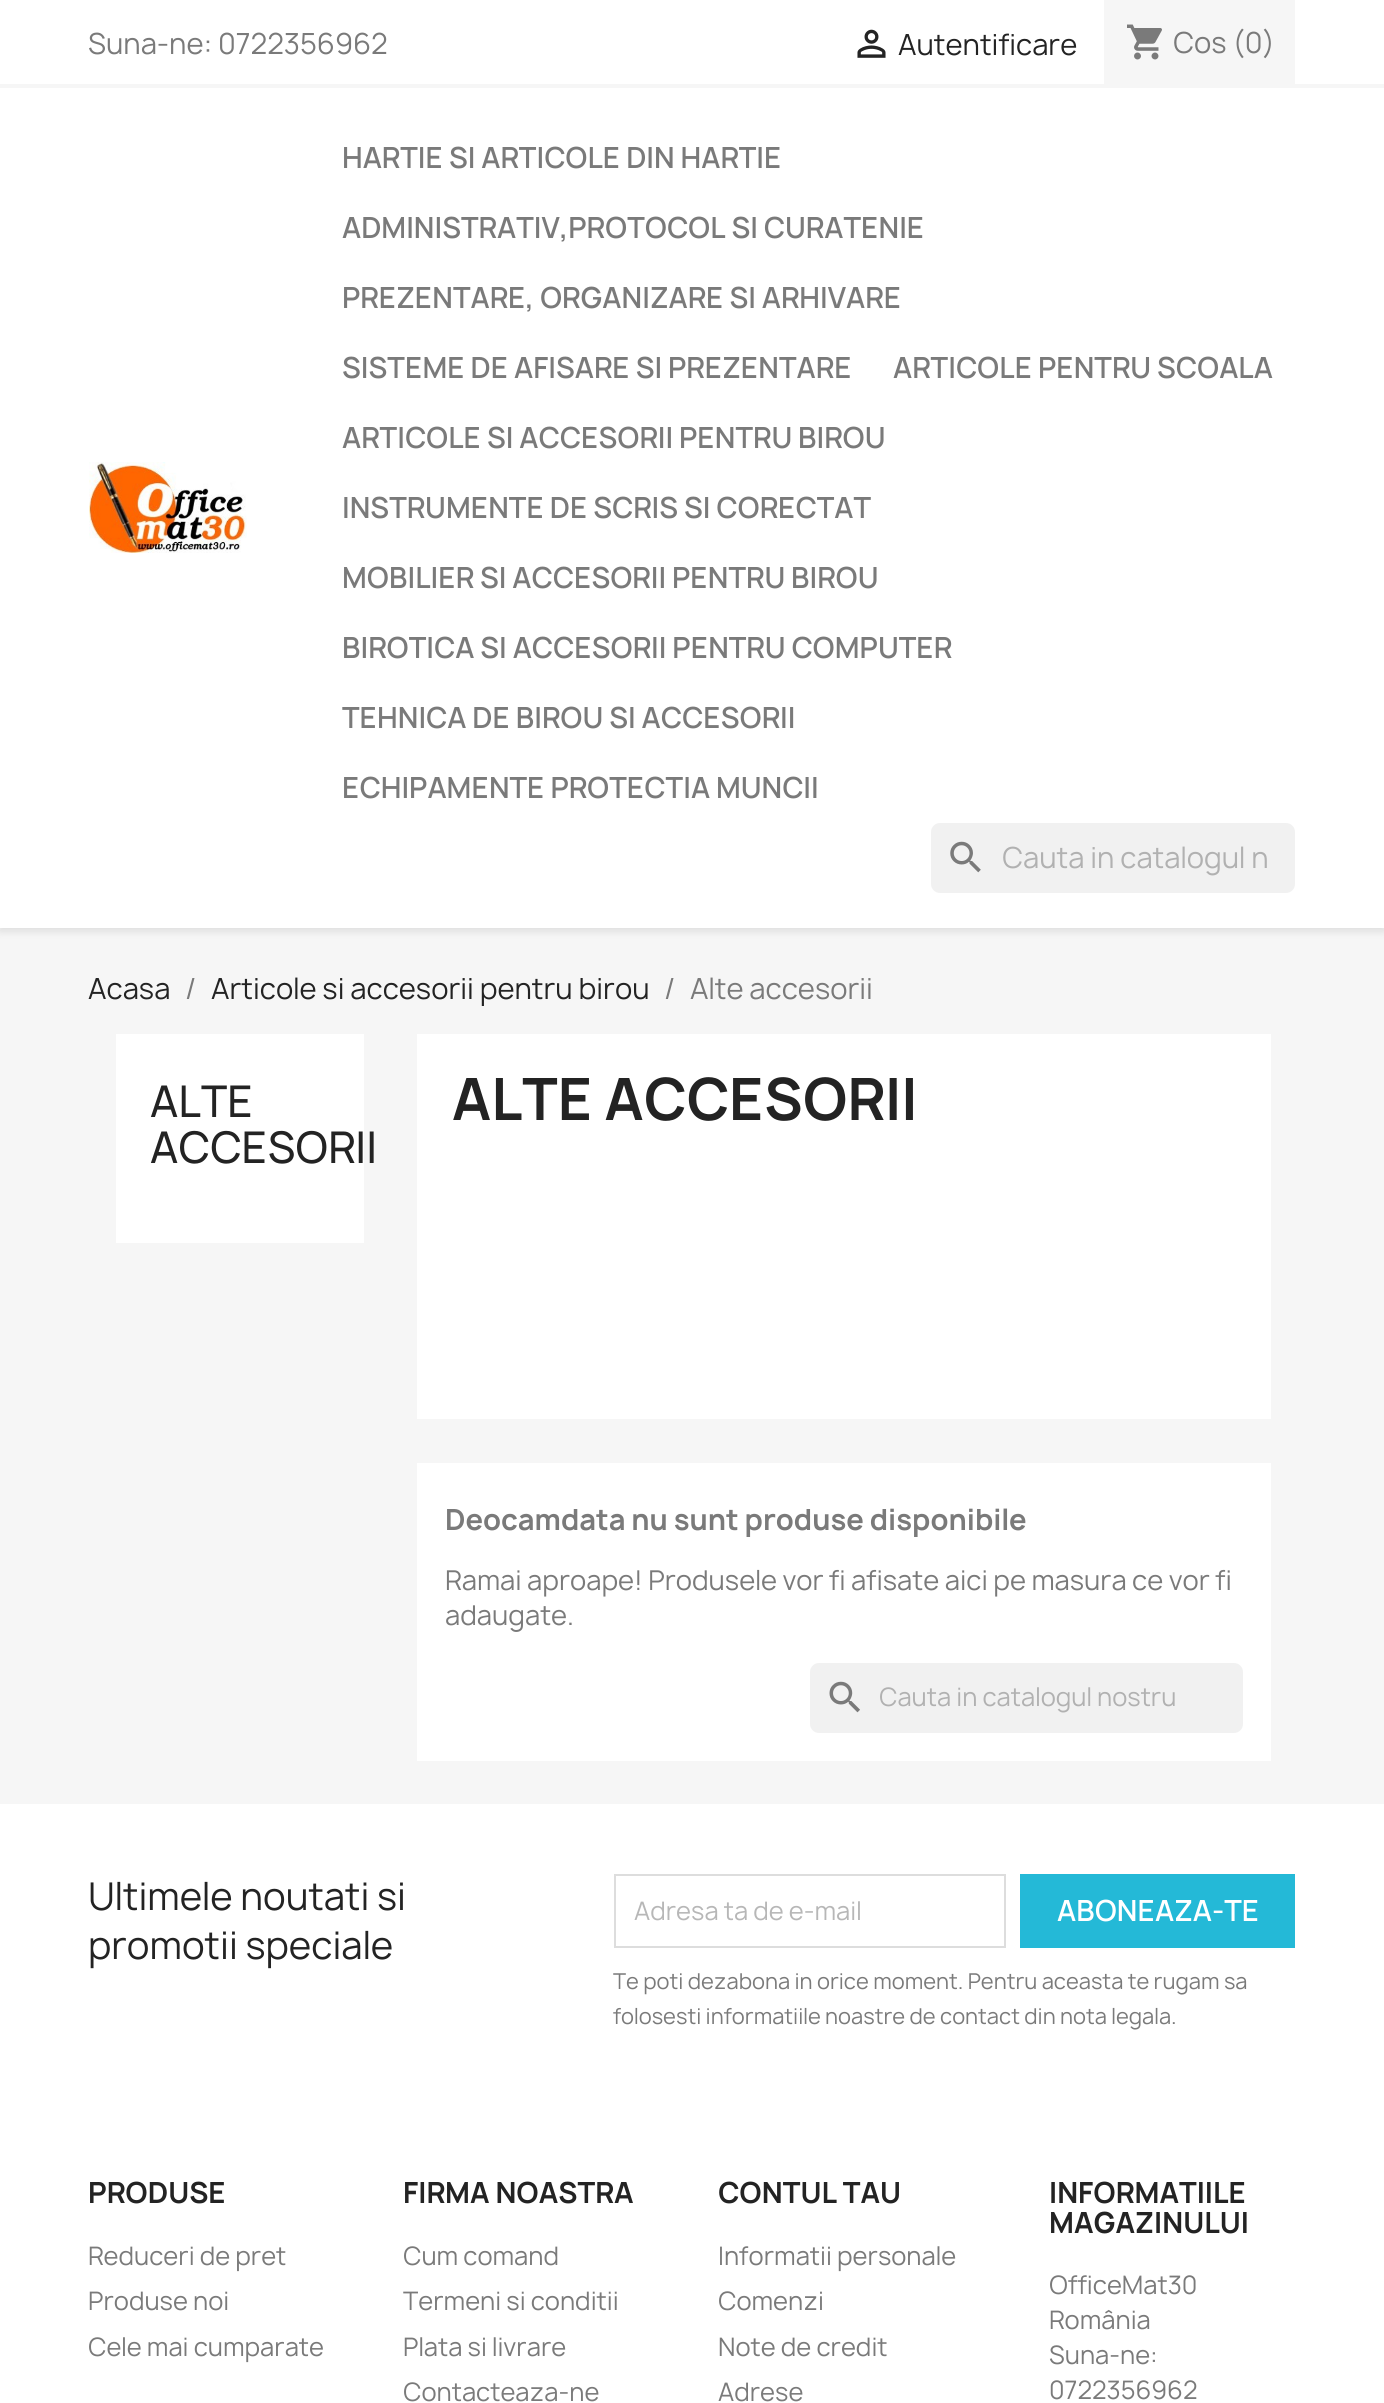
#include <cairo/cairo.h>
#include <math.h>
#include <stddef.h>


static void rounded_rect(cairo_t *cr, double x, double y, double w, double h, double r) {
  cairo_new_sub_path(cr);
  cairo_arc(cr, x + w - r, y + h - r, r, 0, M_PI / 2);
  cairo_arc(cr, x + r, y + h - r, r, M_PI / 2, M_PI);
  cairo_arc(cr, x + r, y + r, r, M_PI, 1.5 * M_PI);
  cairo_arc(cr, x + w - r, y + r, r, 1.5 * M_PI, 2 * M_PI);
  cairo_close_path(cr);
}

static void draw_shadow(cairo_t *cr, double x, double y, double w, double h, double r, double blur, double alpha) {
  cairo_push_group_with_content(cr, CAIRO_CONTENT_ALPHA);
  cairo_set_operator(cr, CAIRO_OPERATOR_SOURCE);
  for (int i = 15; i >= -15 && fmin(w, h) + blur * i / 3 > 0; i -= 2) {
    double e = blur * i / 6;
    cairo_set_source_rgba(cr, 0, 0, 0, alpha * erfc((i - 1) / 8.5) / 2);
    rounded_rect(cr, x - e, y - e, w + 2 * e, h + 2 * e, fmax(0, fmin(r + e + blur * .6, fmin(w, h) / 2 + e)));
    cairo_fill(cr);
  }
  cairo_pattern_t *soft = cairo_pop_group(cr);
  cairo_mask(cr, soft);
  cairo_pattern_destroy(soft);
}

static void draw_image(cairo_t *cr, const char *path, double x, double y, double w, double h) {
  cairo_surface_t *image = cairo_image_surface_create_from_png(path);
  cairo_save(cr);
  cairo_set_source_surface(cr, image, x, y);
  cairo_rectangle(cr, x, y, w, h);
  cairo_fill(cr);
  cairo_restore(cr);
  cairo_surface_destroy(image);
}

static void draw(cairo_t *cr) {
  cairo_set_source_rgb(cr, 1, 1, 1);
  cairo_paint(cr);
  cairo_set_source_rgb(cr, 246 / 255.0, 246 / 255.0, 246 / 255.0);
  cairo_rectangle(cr, 0, 928, 1384, 876);
  cairo_fill(cr);
  cairo_set_source_rgb(cr, 0, 0, 0);
  draw_shadow(cr, 0, 4, 1384, 927, 0, 4.5, 0.11);
  cairo_set_source_rgb(cr, 1, 1, 1);
  cairo_rectangle(cr, 0, 0, 1384, 928);
  cairo_fill(cr);
  cairo_set_source_rgb(cr, 246 / 255.0, 246 / 255.0, 246 / 255.0);
  cairo_rectangle(cr, 0, 84, 1384, 4);
  cairo_fill(cr);
  draw_image(cr, "images/1.png", 857, 29, 29, 29);
  cairo_rectangle(cr, 1104, 0, 191, 84);
  cairo_fill(cr);
  draw_image(cr, "images/2.png", 1127, 24, 35, 36);
  draw_image(cr, "images/3.png", 89, 462, 158, 91);
  cairo_set_source_rgb(cr, 241 / 255.0, 241 / 255.0, 241 / 255.0);
  rounded_rect(cr, 931, 823, 364, 70, 9);
  cairo_fill(cr);
  draw_image(cr, "images/4.png", 950, 841, 31, 32);
  cairo_set_source_rgb(cr, 1, 1, 1);
  cairo_rectangle(cr, 116, 1034, 248, 209);
  cairo_fill(cr);
  cairo_rectangle(cr, 417, 1034, 854, 385);
  cairo_fill(cr);
  cairo_rectangle(cr, 417, 1463, 854, 298);
  cairo_fill(cr);
  cairo_set_source_rgb(cr, 241 / 255.0, 241 / 255.0, 241 / 255.0);
  rounded_rect(cr, 810, 1663, 433, 70, 9);
  cairo_fill(cr);
  draw_image(cr, "images/5.png", 829, 1681, 31, 32);
  cairo_rectangle(cr, 615, 1875, 390, 72);
  cairo_set_source_rgb(cr, 221 / 255.0, 221 / 255.0, 221 / 255.0);
  cairo_stroke(cr);
  cairo_set_source_rgb(cr, 36 / 255.0, 185 / 255.0, 215 / 255.0);
  cairo_rectangle(cr, 1020, 1874, 275, 74);
  cairo_fill(cr);
  cairo_select_font_face(cr, "Manrope", CAIRO_FONT_SLANT_NORMAL, CAIRO_FONT_WEIGHT_NORMAL);
  cairo_set_font_size(cr, 28);
  cairo_set_source_rgb(cr, 122 / 255.0, 122 / 255.0, 122 / 255.0);
  cairo_move_to(cr, 88, 54);
  cairo_show_text(cr, "Suna-ne: 0722356962");
  cairo_set_source_rgb(cr, 35 / 255.0, 35 / 255.0, 35 / 255.0);
  cairo_move_to(cr, 898, 55);
  cairo_show_text(cr, "Autentificare");
  cairo_set_source_rgb(cr, 122 / 255.0, 122 / 255.0, 122 / 255.0);
  cairo_move_to(cr, 1173, 53);
  cairo_show_text(cr, "Cos (0)");
  cairo_select_font_face(cr, "Manrope SemiBold", CAIRO_FONT_SLANT_NORMAL, CAIRO_FONT_WEIGHT_NORMAL);
  cairo_move_to(cr, 342, 168);
  cairo_show_text(cr, "HARTIE SI ARTICOLE DIN HARTIE");
  cairo_move_to(cr, 342, 238);
  cairo_show_text(cr, "ADMINISTRATIV,PROTOCOL SI CURATENIE");
  cairo_move_to(cr, 342, 308);
  cairo_show_text(cr, "PREZENTARE, ORGANIZARE SI ARHIVARE");
  cairo_move_to(cr, 342, 378);
  cairo_show_text(cr, "SISTEME DE AFISARE SI PREZENTARE");
  cairo_move_to(cr, 893, 378);
  cairo_show_text(cr, "ARTICOLE PENTRU SCOALA");
  cairo_move_to(cr, 342, 448);
  cairo_show_text(cr, "ARTICOLE SI ACCESORII PENTRU BIROU");
  cairo_move_to(cr, 342, 518);
  cairo_show_text(cr, "INSTRUMENTE DE SCRIS SI CORECTAT");
  cairo_move_to(cr, 342, 588);
  cairo_show_text(cr, "MOBILIER SI ACCESORII PENTRU BIROU");
  cairo_move_to(cr, 342, 658);
  cairo_show_text(cr, "BIROTICA SI ACCESORII PENTRU COMPUTER");
  cairo_move_to(cr, 342, 728);
  cairo_show_text(cr, "TEHNICA DE BIROU SI ACCESORII");
  cairo_move_to(cr, 342, 798);
  cairo_show_text(cr, "ECHIPAMENTE PROTECTIA MUNCII");
  cairo_select_font_face(cr, "Manrope", CAIRO_FONT_SLANT_NORMAL, CAIRO_FONT_WEIGHT_NORMAL);
  cairo_set_source_rgb(cr, 177 / 255.0, 177 / 255.0, 177 / 255.0);
  cairo_move_to(cr, 1002, 868);
  cairo_show_text(cr, "Cauta in catalogul n");
  cairo_set_source_rgb(cr, 35 / 255.0, 35 / 255.0, 35 / 255.0);
  cairo_move_to(cr, 88, 999);
  cairo_show_text(cr, "Acasa");
  cairo_set_source_rgb(cr, 122 / 255.0, 122 / 255.0, 122 / 255.0);
  cairo_move_to(cr, 185, 999);
  cairo_show_text(cr, "/");
  cairo_set_source_rgb(cr, 35 / 255.0, 35 / 255.0, 35 / 255.0);
  cairo_move_to(cr, 211, 999);
  cairo_show_text(cr, "Articole si accesorii pentru birou");
  cairo_set_source_rgb(cr, 122 / 255.0, 122 / 255.0, 122 / 255.0);
  cairo_move_to(cr, 664, 999);
  cairo_show_text(cr, "/");
  cairo_move_to(cr, 690, 999);
  cairo_show_text(cr, "Alte accesorii");
  cairo_select_font_face(cr, "Manrope Medium", CAIRO_FONT_SLANT_NORMAL, CAIRO_FONT_WEIGHT_NORMAL);
  cairo_set_font_size(cr, 42);
  cairo_set_source_rgb(cr, 35 / 255.0, 35 / 255.0, 35 / 255.0);
  cairo_move_to(cr, 150, 1117);
  cairo_show_text(cr, "ALTE");
  cairo_move_to(cr, 150, 1163);
  cairo_show_text(cr, "ACCESORII");
  cairo_select_font_face(cr, "Manrope", CAIRO_FONT_SLANT_NORMAL, CAIRO_FONT_WEIGHT_BOLD);
  cairo_set_font_size(cr, 56);
  cairo_move_to(cr, 452, 1120);
  cairo_show_text(cr, "ALTE ACCESORII");
  cairo_set_font_size(cr, 28);
  cairo_set_source_rgb(cr, 122 / 255.0, 122 / 255.0, 122 / 255.0);
  cairo_move_to(cr, 445, 1530);
  cairo_show_text(cr, "Deocamdata nu sunt produse disponibile");
  cairo_select_font_face(cr, "Manrope", CAIRO_FONT_SLANT_NORMAL, CAIRO_FONT_WEIGHT_NORMAL);
  cairo_set_font_size(cr, 26.25);
  cairo_move_to(cr, 445, 1590);
  cairo_show_text(cr, "Ramai aproape! Produsele vor fi afisate aici pe masura ce vor fi");
  cairo_move_to(cr, 445, 1625);
  cairo_show_text(cr, "adaugate.");
  cairo_set_font_size(cr, 24.5);
  cairo_set_source_rgb(cr, 177 / 255.0, 177 / 255.0, 177 / 255.0);
  cairo_move_to(cr, 879, 1706);
  cairo_show_text(cr, "Cauta in catalogul nostru");
  cairo_set_font_size(cr, 36.75);
  cairo_set_source_rgb(cr, 35 / 255.0, 35 / 255.0, 35 / 255.0);
  cairo_move_to(cr, 88, 1910);
  cairo_show_text(cr, "Ultimele noutati si");
  cairo_move_to(cr, 88, 1959);
  cairo_show_text(cr, "promotii speciale");
  cairo_set_font_size(cr, 24.5);
  cairo_set_source_rgb(cr, 183 / 255.0, 183 / 255.0, 183 / 255.0);
  cairo_move_to(cr, 634, 1920);
  cairo_show_text(cr, "Adresa ta de e-mail");
  cairo_select_font_face(cr, "Manrope SemiBold", CAIRO_FONT_SLANT_NORMAL, CAIRO_FONT_WEIGHT_NORMAL);
  cairo_set_font_size(cr, 28);
  cairo_set_source_rgb(cr, 1, 1, 1);
  cairo_move_to(cr, 1057, 1921);
  cairo_show_text(cr, "ABONEAZA-TE");
  cairo_select_font_face(cr, "Manrope", CAIRO_FONT_SLANT_NORMAL, CAIRO_FONT_WEIGHT_NORMAL);
  cairo_set_font_size(cr, 21);
  cairo_set_source_rgb(cr, 122 / 255.0, 122 / 255.0, 122 / 255.0);
  cairo_move_to(cr, 613, 1989);
  cairo_show_text(cr, "Te poti dezabona in orice moment. Pentru aceasta te rugam sa");
  cairo_move_to(cr, 613, 2024);
  cairo_show_text(cr, "folosesti informatiile noastre de contact din nota legala.");
  cairo_select_font_face(cr, "Manrope", CAIRO_FONT_SLANT_NORMAL, CAIRO_FONT_WEIGHT_BOLD);
  cairo_set_font_size(cr, 28);
  cairo_set_source_rgb(cr, 35 / 255.0, 35 / 255.0, 35 / 255.0);
  cairo_move_to(cr, 88, 2203);
  cairo_show_text(cr, "PRODUSE");
  cairo_select_font_face(cr, "Manrope", CAIRO_FONT_SLANT_NORMAL, CAIRO_FONT_WEIGHT_NORMAL);
  cairo_set_font_size(cr, 24.5);
  cairo_set_source_rgb(cr, 122 / 255.0, 122 / 255.0, 122 / 255.0);
  cairo_move_to(cr, 88, 2265);
  cairo_show_text(cr, "Reduceri de pret");
  cairo_move_to(cr, 88, 2310);
  cairo_show_text(cr, "Produse noi");
  cairo_move_to(cr, 88, 2356);
  cairo_show_text(cr, "Cele mai cumparate");
  cairo_select_font_face(cr, "Manrope", CAIRO_FONT_SLANT_NORMAL, CAIRO_FONT_WEIGHT_BOLD);
  cairo_set_font_size(cr, 28);
  cairo_set_source_rgb(cr, 35 / 255.0, 35 / 255.0, 35 / 255.0);
  cairo_move_to(cr, 403, 2203);
  cairo_show_text(cr, "FIRMA NOASTRA");
  cairo_select_font_face(cr, "Manrope", CAIRO_FONT_SLANT_NORMAL, CAIRO_FONT_WEIGHT_NORMAL);
  cairo_set_font_size(cr, 24.5);
  cairo_set_source_rgb(cr, 122 / 255.0, 122 / 255.0, 122 / 255.0);
  cairo_move_to(cr, 403, 2265);
  cairo_show_text(cr, "Cum comand");
  cairo_move_to(cr, 403, 2310);
  cairo_show_text(cr, "Termeni si conditii");
  cairo_move_to(cr, 403, 2356);
  cairo_show_text(cr, "Plata si livrare");
  cairo_move_to(cr, 403, 2401);
  cairo_show_text(cr, "Contacteaza-ne");
  cairo_select_font_face(cr, "Manrope", CAIRO_FONT_SLANT_NORMAL, CAIRO_FONT_WEIGHT_BOLD);
  cairo_set_font_size(cr, 28);
  cairo_set_source_rgb(cr, 35 / 255.0, 35 / 255.0, 35 / 255.0);
  cairo_move_to(cr, 718, 2203);
  cairo_show_text(cr, "CONTUL TAU");
  cairo_select_font_face(cr, "Manrope", CAIRO_FONT_SLANT_NORMAL, CAIRO_FONT_WEIGHT_NORMAL);
  cairo_set_font_size(cr, 24.5);
  cairo_set_source_rgb(cr, 122 / 255.0, 122 / 255.0, 122 / 255.0);
  cairo_move_to(cr, 718, 2265);
  cairo_show_text(cr, "Informatii personale");
  cairo_move_to(cr, 718, 2310);
  cairo_show_text(cr, "Comenzi");
  cairo_move_to(cr, 718, 2356);
  cairo_show_text(cr, "Note de credit");
  cairo_move_to(cr, 718, 2401);
  cairo_show_text(cr, "Adrese");
  cairo_select_font_face(cr, "Manrope", CAIRO_FONT_SLANT_NORMAL, CAIRO_FONT_WEIGHT_BOLD);
  cairo_set_font_size(cr, 28);
  cairo_set_source_rgb(cr, 35 / 255.0, 35 / 255.0, 35 / 255.0);
  cairo_move_to(cr, 1049, 2203);
  cairo_show_text(cr, "INFORMATIILE");
  cairo_move_to(cr, 1049, 2233);
  cairo_show_text(cr, "MAGAZINULUI");
  cairo_select_font_face(cr, "Manrope", CAIRO_FONT_SLANT_NORMAL, CAIRO_FONT_WEIGHT_NORMAL);
  cairo_set_font_size(cr, 24.5);
  cairo_set_source_rgb(cr, 122 / 255.0, 122 / 255.0, 122 / 255.0);
  cairo_move_to(cr, 1049, 2294);
  cairo_show_text(cr, "OfficeMat30");
  cairo_move_to(cr, 1049, 2329);
  cairo_show_text(cr, "România");
  cairo_move_to(cr, 1049, 2364);
  cairo_show_text(cr, "Suna-ne:");
  cairo_move_to(cr, 1049, 2399);
  cairo_show_text(cr, "0722356962");
}

int main(void) {
  cairo_surface_t *surface = cairo_image_surface_create(CAIRO_FORMAT_RGB24, 1384, 2403);
  cairo_t *cr = cairo_create(surface);
  cairo_font_options_t *options = cairo_font_options_create();
  cairo_font_options_set_hint_metrics(options, CAIRO_HINT_METRICS_OFF);
  cairo_font_options_set_hint_style(options, CAIRO_HINT_STYLE_NONE);
  cairo_set_font_options(cr, options);
  cairo_set_miter_limit(cr, 4);
  draw(cr);
  cairo_surface_write_to_png(surface, "out.png");
  cairo_font_options_destroy(options);
  cairo_destroy(cr);
  cairo_surface_destroy(surface);
  return 0;
}
